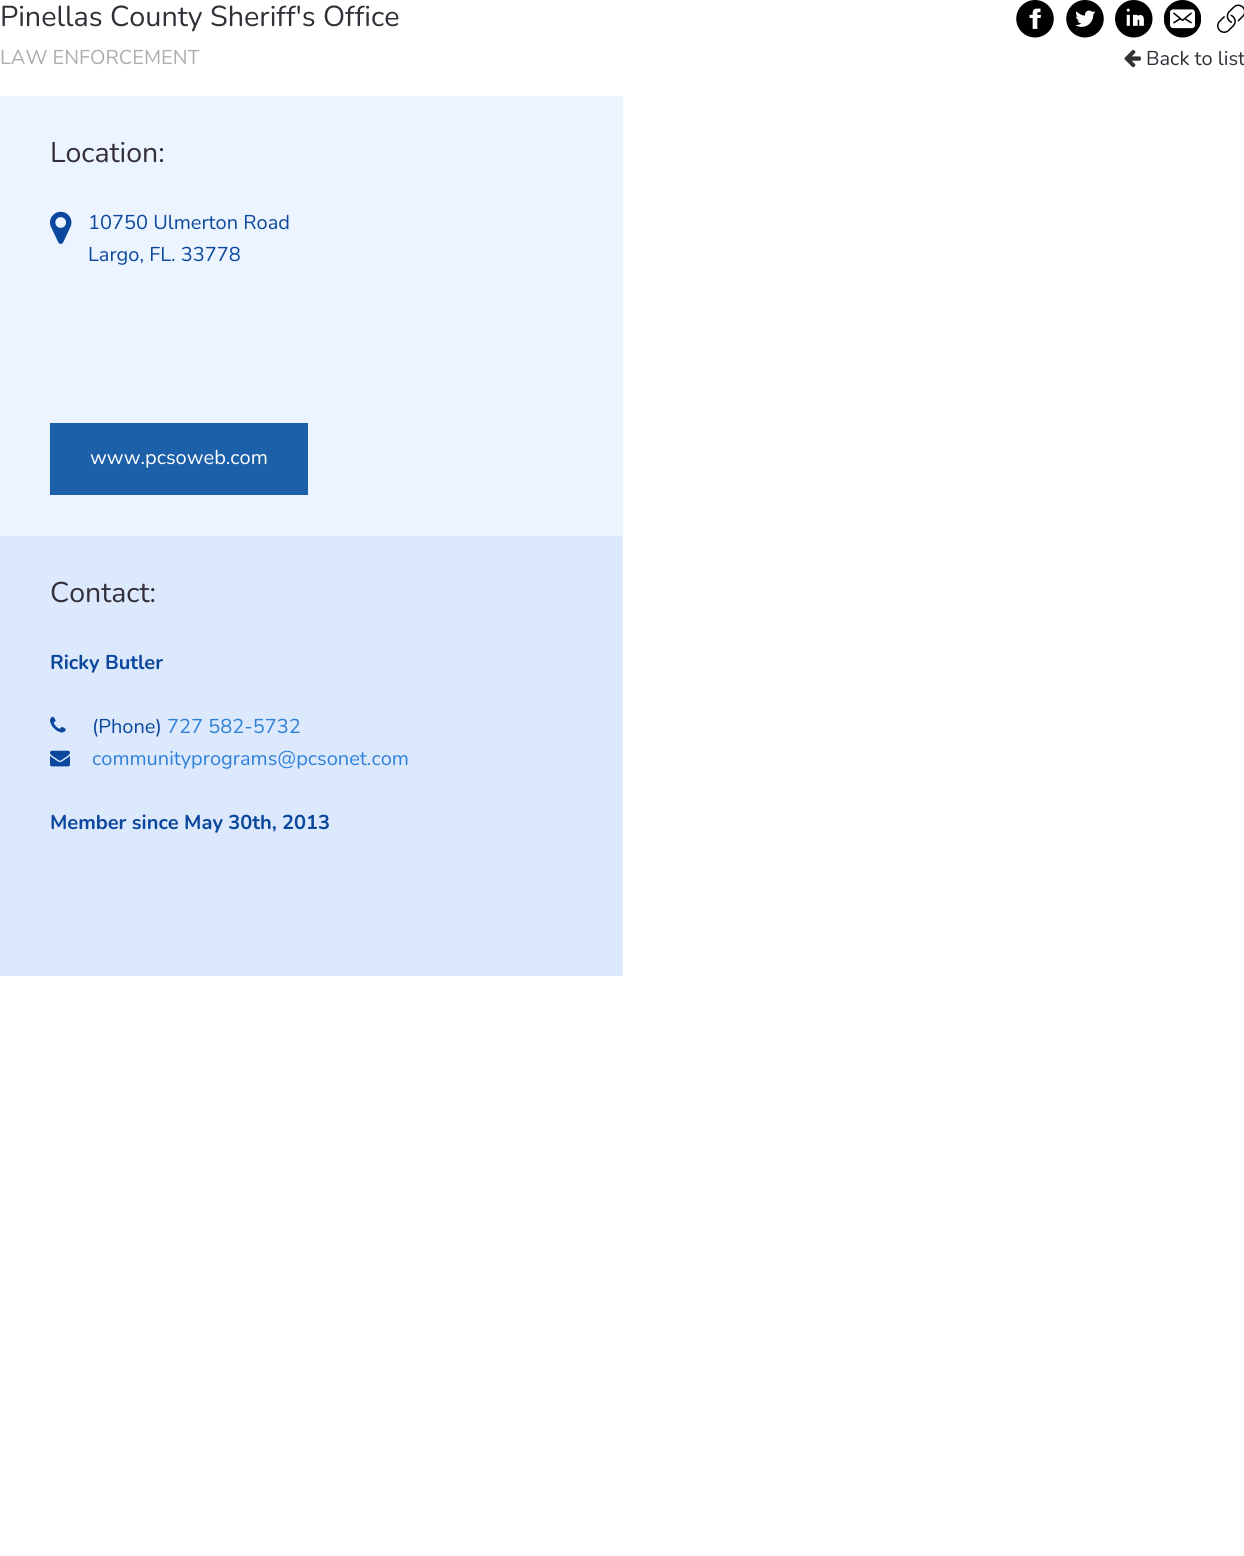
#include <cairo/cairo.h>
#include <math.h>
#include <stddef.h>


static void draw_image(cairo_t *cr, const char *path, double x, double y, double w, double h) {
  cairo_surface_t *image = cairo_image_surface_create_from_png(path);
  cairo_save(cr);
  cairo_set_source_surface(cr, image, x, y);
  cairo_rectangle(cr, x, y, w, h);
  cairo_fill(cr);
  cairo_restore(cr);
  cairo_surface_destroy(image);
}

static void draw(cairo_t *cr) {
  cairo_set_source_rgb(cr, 1, 1, 1);
  cairo_paint(cr);
  draw_image(cr, "images/1.png", 1016, 0, 38, 38);
  draw_image(cr, "images/2.png", 1066, 0, 38, 38);
  draw_image(cr, "images/3.png", 1115, 0, 38, 38);
  draw_image(cr, "images/4.png", 1164, 0, 37, 38);
  draw_image(cr, "images/5.png", 1217, 4, 27, 29);
  draw_image(cr, "images/6.png", 1124, 49, 17, 19);
  cairo_set_source_rgb(cr, 236 / 255.0, 244 / 255.0, 1);
  cairo_rectangle(cr, 0, 96, 623, 440);
  cairo_fill(cr);
  draw_image(cr, "images/7.png", 50, 211, 22, 33);
  cairo_set_source_rgb(cr, 28 / 255.0, 96 / 255.0, 170 / 255.0);
  cairo_rectangle(cr, 50, 423, 258, 72);
  cairo_fill(cr);
  cairo_set_source_rgb(cr, 220 / 255.0, 233 / 255.0, 252 / 255.0);
  cairo_rectangle(cr, 0, 536, 623, 440);
  cairo_fill(cr);
  draw_image(cr, "images/8.png", 50, 716, 16, 17);
  draw_image(cr, "images/9.png", 50, 750, 20, 17);
  cairo_select_font_face(cr, "Nunito", CAIRO_FONT_SLANT_NORMAL, CAIRO_FONT_WEIGHT_NORMAL);
  cairo_set_font_size(cr, 28.75);
  cairo_set_source_rgb(cr, 51 / 255.0, 46 / 255.0, 56 / 255.0);
  cairo_move_to(cr, 0, 26);
  cairo_show_text(cr, "Pinellas County Sheriff's Office");
  cairo_set_font_size(cr, 20);
  cairo_set_source_rgb(cr, 178 / 255.0, 171 / 255.0, 171 / 255.0);
  cairo_move_to(cr, 0, 64);
  cairo_show_text(cr, "LAW ENFORCEMENT");
  cairo_set_source_rgb(cr, 51 / 255.0, 46 / 255.0, 56 / 255.0);
  cairo_move_to(cr, 1146, 65);
  cairo_show_text(cr, "Back to list");
  cairo_set_font_size(cr, 28.5);
  cairo_move_to(cr, 50, 162);
  cairo_show_text(cr, "Location:");
  cairo_set_font_size(cr, 20);
  cairo_set_source_rgb(cr, 11 / 255.0, 71 / 255.0, 157 / 255.0);
  cairo_move_to(cr, 88, 229);
  cairo_show_text(cr, "10750 Ulmerton Road");
  cairo_move_to(cr, 88, 261);
  cairo_show_text(cr, "Largo, FL. 33778");
  cairo_set_source_rgb(cr, 1, 1, 1);
  cairo_move_to(cr, 90, 464);
  cairo_show_text(cr, "www.pcsoweb.com");
  cairo_set_font_size(cr, 28.5);
  cairo_set_source_rgb(cr, 51 / 255.0, 46 / 255.0, 56 / 255.0);
  cairo_move_to(cr, 50, 602);
  cairo_show_text(cr, "Contact:");
  cairo_select_font_face(cr, "Nunito", CAIRO_FONT_SLANT_NORMAL, CAIRO_FONT_WEIGHT_BOLD);
  cairo_set_font_size(cr, 20);
  cairo_set_source_rgb(cr, 11 / 255.0, 71 / 255.0, 157 / 255.0);
  cairo_move_to(cr, 50, 669);
  cairo_show_text(cr, "Ricky Butler");
  cairo_select_font_face(cr, "Nunito", CAIRO_FONT_SLANT_NORMAL, CAIRO_FONT_WEIGHT_NORMAL);
  cairo_move_to(cr, 92, 733);
  cairo_show_text(cr, "(Phone)");
  cairo_set_source_rgb(cr, 46 / 255.0, 128 / 255.0, 217 / 255.0);
  cairo_move_to(cr, 167, 733);
  cairo_show_text(cr, "727 582-5732");
  cairo_move_to(cr, 92, 765);
  cairo_show_text(cr, "communityprograms@pcsonet.com");
  cairo_select_font_face(cr, "Nunito", CAIRO_FONT_SLANT_NORMAL, CAIRO_FONT_WEIGHT_BOLD);
  cairo_set_source_rgb(cr, 11 / 255.0, 71 / 255.0, 157 / 255.0);
  cairo_move_to(cr, 50, 829);
  cairo_show_text(cr, "Member since May 30th, 2013");
}

int main(void) {
  cairo_surface_t *surface = cairo_image_surface_create(CAIRO_FORMAT_RGB24, 1244, 1556);
  cairo_t *cr = cairo_create(surface);
  cairo_font_options_t *options = cairo_font_options_create();
  cairo_font_options_set_hint_metrics(options, CAIRO_HINT_METRICS_OFF);
  cairo_font_options_set_hint_style(options, CAIRO_HINT_STYLE_NONE);
  cairo_set_font_options(cr, options);
  cairo_set_miter_limit(cr, 4);
  draw(cr);
  cairo_surface_write_to_png(surface, "out.png");
  cairo_font_options_destroy(options);
  cairo_destroy(cr);
  cairo_surface_destroy(surface);
  return 0;
}
